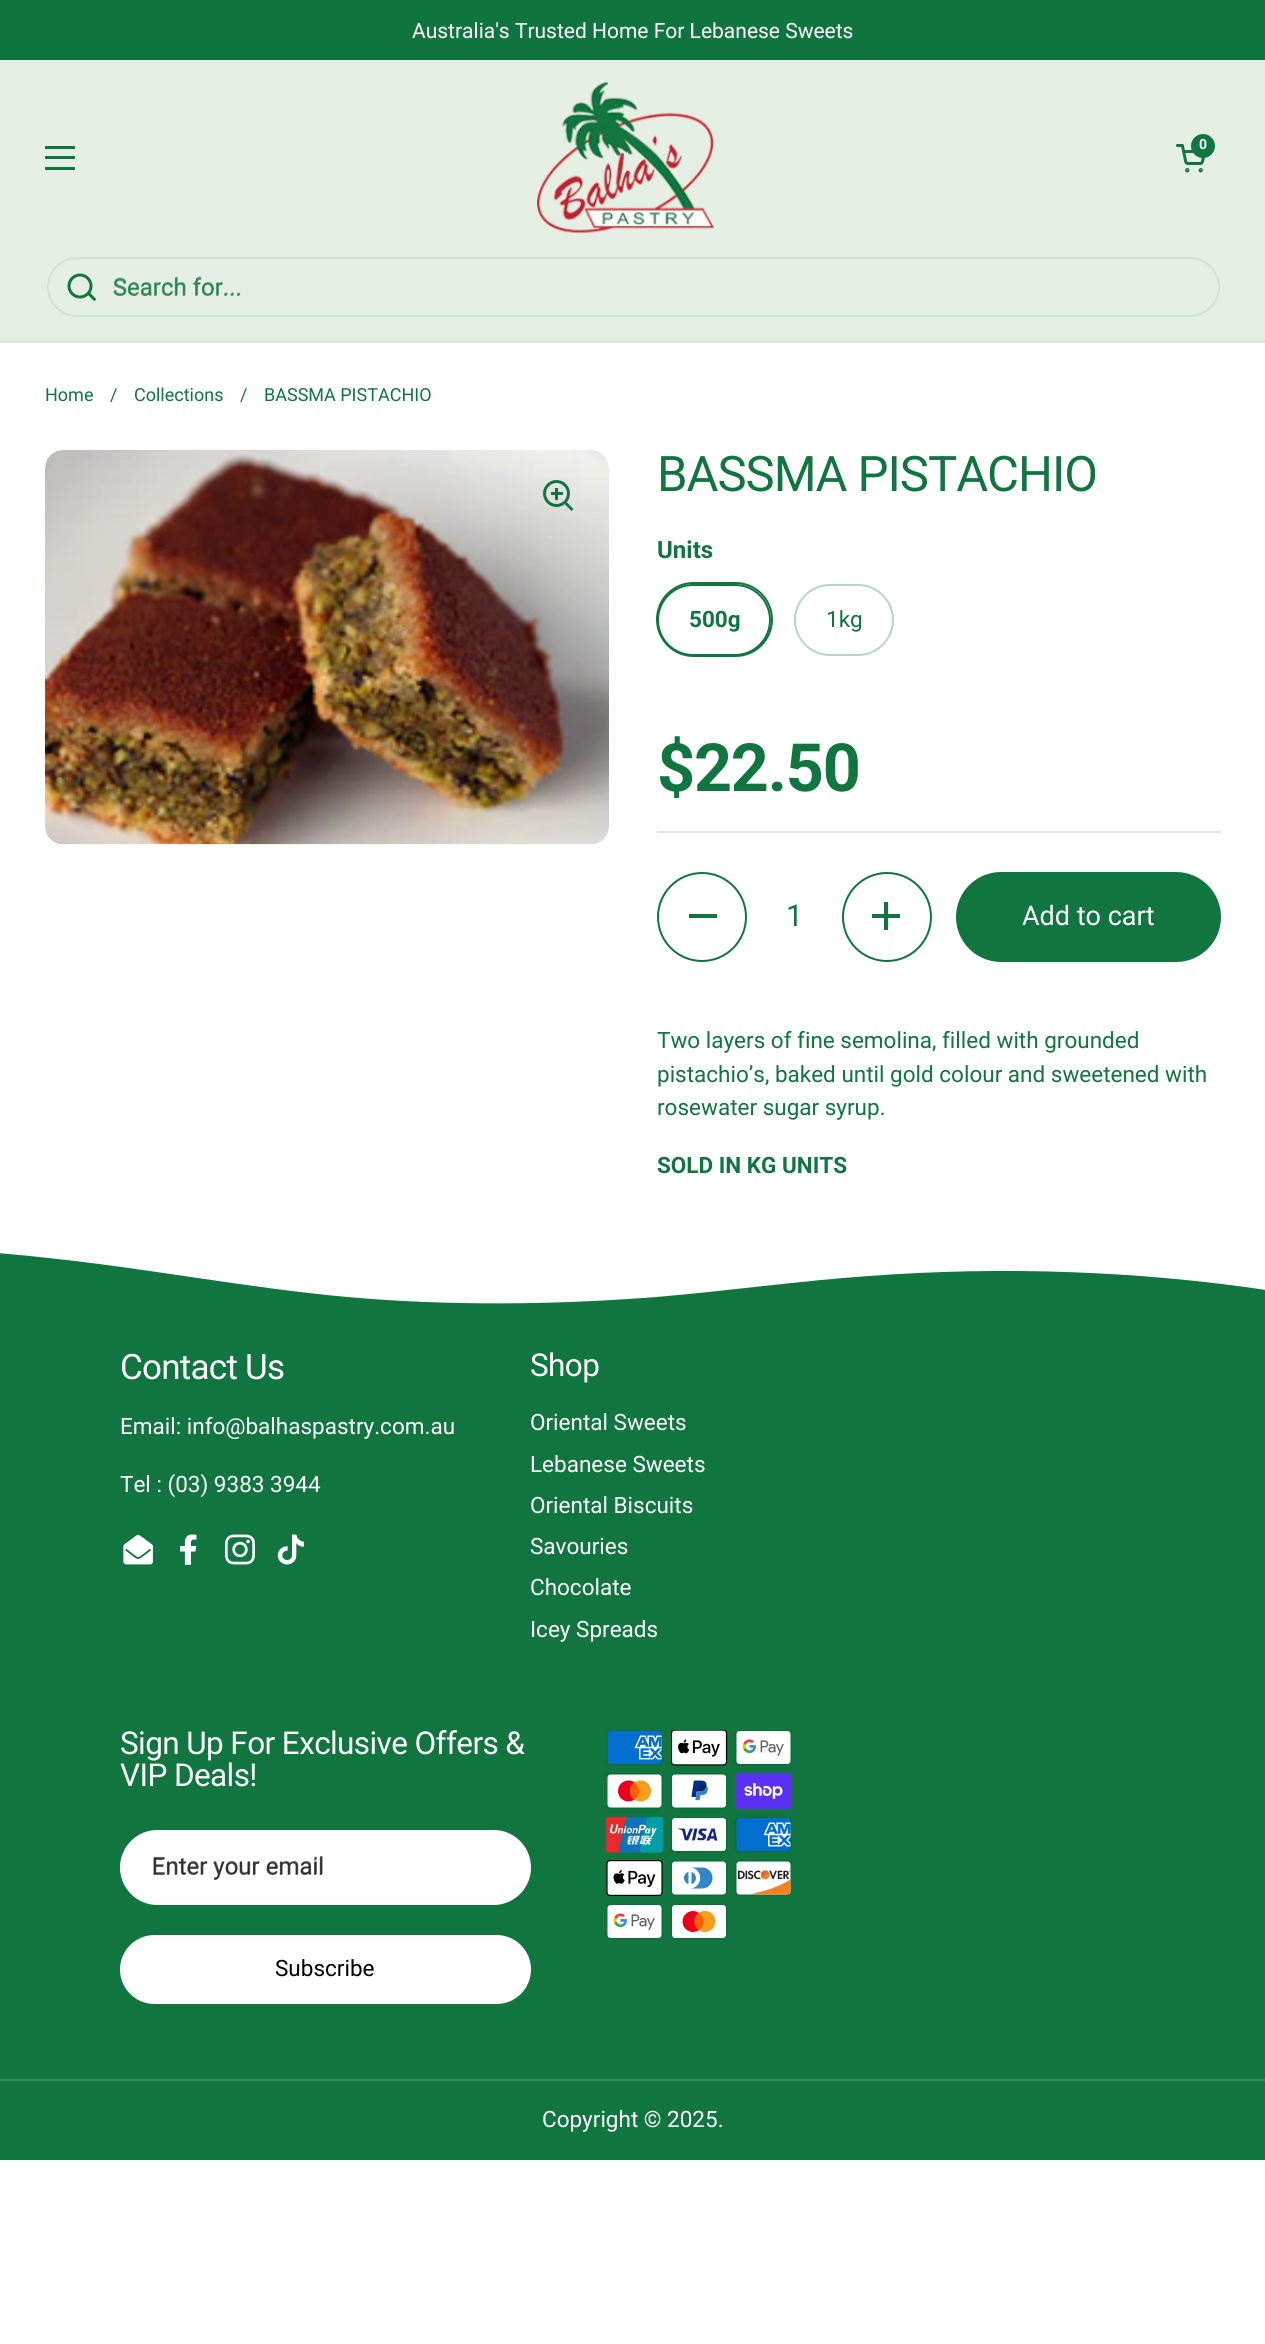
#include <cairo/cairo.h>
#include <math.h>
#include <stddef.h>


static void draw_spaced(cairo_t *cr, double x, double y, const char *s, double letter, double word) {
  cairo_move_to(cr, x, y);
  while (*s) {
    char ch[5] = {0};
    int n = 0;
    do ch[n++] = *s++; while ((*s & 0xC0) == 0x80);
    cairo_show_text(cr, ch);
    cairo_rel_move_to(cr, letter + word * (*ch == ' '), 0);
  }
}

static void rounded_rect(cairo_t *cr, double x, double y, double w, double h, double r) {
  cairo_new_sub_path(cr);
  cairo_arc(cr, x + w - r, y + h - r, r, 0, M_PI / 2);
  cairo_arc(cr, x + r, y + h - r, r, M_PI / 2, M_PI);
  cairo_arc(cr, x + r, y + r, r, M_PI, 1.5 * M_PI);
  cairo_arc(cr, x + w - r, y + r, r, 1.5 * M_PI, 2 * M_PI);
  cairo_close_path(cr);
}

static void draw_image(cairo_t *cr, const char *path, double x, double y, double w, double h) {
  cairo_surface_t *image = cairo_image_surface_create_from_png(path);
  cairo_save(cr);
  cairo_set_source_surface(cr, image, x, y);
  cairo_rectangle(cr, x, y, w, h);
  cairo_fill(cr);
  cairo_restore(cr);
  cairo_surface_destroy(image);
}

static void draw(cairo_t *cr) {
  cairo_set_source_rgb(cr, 1, 1, 1);
  cairo_paint(cr);
  cairo_set_source_rgb(cr, 231 / 255.0, 241 / 255.0, 236 / 255.0);
  cairo_rectangle(cr, 0, 342, 1265, 1);
  cairo_fill(cr);
  cairo_set_source_rgb(cr, 16 / 255.0, 116 / 255.0, 62 / 255.0);
  cairo_rectangle(cr, 0, 0, 1265, 60);
  cairo_fill(cr);
  cairo_set_source_rgb(cr, 230 / 255.0, 239 / 255.0, 227 / 255.0);
  cairo_rectangle(cr, 0, 60, 1265, 281);
  cairo_fill(cr);
  cairo_set_source_rgb(cr, 209 / 255.0, 227 / 255.0, 211 / 255.0);
  cairo_rectangle(cr, 0, 341, 1265, 1);
  cairo_fill(cr);
  draw_image(cr, "images/1.png", 537, 82, 177, 151);
  draw_image(cr, "images/2.png", 1176, 144, 29, 29);
  cairo_set_source_rgb(cr, 16 / 255.0, 117 / 255.0, 63 / 255.0);
  cairo_arc(cr, 1203, 146, 12, 0, 2 * M_PI);
  cairo_fill(cr);
  cairo_rectangle(cr, 45, 146, 30, 3);
  cairo_fill(cr);
  cairo_rectangle(cr, 45, 156, 30, 3);
  cairo_fill(cr);
  cairo_rectangle(cr, 45, 167, 30, 3);
  cairo_fill(cr);
  rounded_rect(cr, 48, 258, 1171, 58, 29);
  cairo_set_source_rgb(cr, 209 / 255.0, 227 / 255.0, 211 / 255.0);
  cairo_stroke(cr);
  draw_image(cr, "images/3.png", 67, 273, 29, 28);
  draw_image(cr, "images/5.png", 45, 450, 564, 395);
  cairo_arc(cr, 556.5, 493.5, 12, 0, 2 * M_PI);
  cairo_set_source_rgb(cr, 16 / 255.0, 117 / 255.0, 63 / 255.0);
  cairo_set_line_width(cr, 3);
  cairo_stroke(cr);
  cairo_rectangle(cr, 555, 488, 3, 12);
  cairo_fill(cr);
  cairo_rectangle(cr, 551, 492, 12, 3);
  cairo_fill(cr);
  cairo_new_path(cr);
  cairo_move_to(cr, 564.5, 504);
  cairo_line_to(cr, 566.5, 502);
  cairo_line_to(cr, 573.5, 509);
  cairo_line_to(cr, 571.5, 511);
  cairo_close_path(cr);
  cairo_fill(cr);
  rounded_rect(cr, 657, 583, 115, 73, 36.5);
  cairo_set_line_width(cr, 2);
  cairo_stroke(cr);
  rounded_rect(cr, 658, 585, 112, 70, 35);
  cairo_stroke(cr);
  rounded_rect(cr, 795, 585, 98, 70, 35);
  cairo_set_source_rgb(cr, 183 / 255.0, 214 / 255.0, 197 / 255.0);
  cairo_stroke(cr);
  cairo_set_source_rgb(cr, 219 / 255.0, 234 / 255.0, 226 / 255.0);
  cairo_rectangle(cr, 657, 831, 564, 2);
  cairo_fill(cr);
  cairo_arc(cr, 702, 917, 44, 0, 2 * M_PI);
  cairo_set_source_rgb(cr, 16 / 255.0, 117 / 255.0, 63 / 255.0);
  cairo_stroke(cr);
  cairo_rectangle(cr, 689, 914, 28, 4);
  cairo_fill(cr);
  cairo_arc(cr, 887, 917, 44, 0, 2 * M_PI);
  cairo_stroke(cr);
  cairo_rectangle(cr, 884, 902, 4, 28);
  cairo_fill(cr);
  cairo_rectangle(cr, 872, 914, 28, 4);
  cairo_fill(cr);
  rounded_rect(cr, 957, 873, 263, 88, 44);
  cairo_fill_preserve(cr);
  cairo_stroke(cr);
  cairo_rectangle(cr, 0, 1253, 1265, 907);
  cairo_fill(cr);
  cairo_save(cr);
  cairo_rectangle(cr, 0, 1245, 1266, 60);
  cairo_clip(cr);
  cairo_set_source_rgb(cr, 1, 1, 1);
  cairo_new_path(cr);
  cairo_move_to(cr, 48, 1258);
  cairo_curve_to(cr, 145, 1268, 248, 1288, 347, 1297);
  cairo_curve_to(cr, 448, 1306, 554, 1305, 656, 1297);
  cairo_curve_to(cr, 728, 1291, 797, 1281, 869, 1276);
  cairo_curve_to(cr, 1002, 1266, 1139, 1271, 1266, 1290);
  cairo_line_to(cr, 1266, 1244);
  cairo_line_to(cr, -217, 1244);
  cairo_line_to(cr, -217, 1256);
  cairo_curve_to(cr, -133, 1245, -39, 1248, 48, 1258);
  cairo_close_path(cr);
  cairo_fill(cr);
  cairo_restore(cr);
  draw_image(cr, "images/6.png", 123, 1534, 30, 31);
  draw_image(cr, "images/7.png", 180, 1534, 17, 31);
  draw_image(cr, "images/8.png", 225, 1534, 30, 31);
  draw_image(cr, "images/9.png", 277, 1534, 27, 31);
  cairo_set_source_rgb(cr, 1, 1, 1);
  rounded_rect(cr, 120, 1830, 411, 75, 37.5);
  cairo_fill(cr);
  rounded_rect(cr, 121, 1831, 409, 73, 36.5);
  cairo_set_source_rgba(cr, 1, 1, 1, 0.15);
  cairo_stroke(cr);
  cairo_set_source_rgb(cr, 1, 1, 1);
  rounded_rect(cr, 120, 1935, 411, 69, 34.5);
  cairo_fill(cr);
  draw_image(cr, "images/10.png", 606, 1730, 57, 36);
  draw_image(cr, "images/11.png", 671, 1730, 57, 36);
  draw_image(cr, "images/12.png", 735, 1730, 57, 36);
  draw_image(cr, "images/13.png", 606, 1773, 57, 36);
  draw_image(cr, "images/14.png", 671, 1773, 57, 36);
  draw_image(cr, "images/15.png", 735, 1773, 57, 36);
  draw_image(cr, "images/16.png", 606, 1817, 57, 36);
  draw_image(cr, "images/17.png", 671, 1817, 57, 36);
  draw_image(cr, "images/18.png", 735, 1817, 57, 36);
  draw_image(cr, "images/19.png", 606, 1860, 57, 36);
  draw_image(cr, "images/20.png", 671, 1860, 57, 36);
  draw_image(cr, "images/21.png", 735, 1860, 57, 36);
  draw_image(cr, "images/22.png", 606, 1904, 57, 36);
  draw_image(cr, "images/23.png", 671, 1904, 57, 36);
  cairo_set_source_rgb(cr, 52 / 255.0, 138 / 255.0, 92 / 255.0);
  cairo_rectangle(cr, 0, 2079, 1265, 2);
  cairo_fill(cr);
  cairo_select_font_face(cr, "Roboto", CAIRO_FONT_SLANT_NORMAL, CAIRO_FONT_WEIGHT_NORMAL);
  cairo_set_font_size(cr, 21);
  cairo_set_source_rgb(cr, 1, 1, 1);
  cairo_move_to(cr, 412, 38);
  cairo_show_text(cr, "Australia's Trusted Home For Lebanese Sweets");
  cairo_select_font_face(cr, "Roboto", CAIRO_FONT_SLANT_NORMAL, CAIRO_FONT_WEIGHT_BOLD);
  cairo_set_font_size(cr, 14);
  cairo_move_to(cr, 1199, 149);
  cairo_show_text(cr, "0");
  cairo_select_font_face(cr, "Roboto", CAIRO_FONT_SLANT_NORMAL, CAIRO_FONT_WEIGHT_NORMAL);
  cairo_set_font_size(cr, 24);
  cairo_set_source_rgb(cr, 89 / 255.0, 158 / 255.0, 119 / 255.0);
  cairo_move_to(cr, 113, 295);
  cairo_show_text(cr, "Search for...");
  cairo_set_font_size(cr, 18);
  cairo_set_source_rgb(cr, 16 / 255.0, 117 / 255.0, 63 / 255.0);
  cairo_move_to(cr, 45, 401);
  cairo_show_text(cr, "Home");
  cairo_move_to(cr, 110, 401);
  cairo_show_text(cr, "/");
  cairo_move_to(cr, 134, 401);
  cairo_show_text(cr, "Collections");
  cairo_move_to(cr, 240, 401);
  cairo_show_text(cr, "/");
  cairo_move_to(cr, 264, 401);
  cairo_show_text(cr, "BASSMA PISTACHIO");
  cairo_set_font_size(cr, 49);
  draw_spaced(cr, 657, 491, "BASSMA PISTACHIO", -1, 0);
  cairo_select_font_face(cr, "Roboto", CAIRO_FONT_SLANT_NORMAL, CAIRO_FONT_WEIGHT_BOLD);
  cairo_set_font_size(cr, 24);
  cairo_move_to(cr, 657, 558);
  cairo_show_text(cr, "Units");
  cairo_set_font_size(cr, 22.5);
  cairo_move_to(cr, 689, 627);
  cairo_show_text(cr, "500g");
  cairo_select_font_face(cr, "Roboto", CAIRO_FONT_SLANT_NORMAL, CAIRO_FONT_WEIGHT_NORMAL);
  cairo_move_to(cr, 826, 627);
  cairo_show_text(cr, "1kg");
  cairo_select_font_face(cr, "Roboto", CAIRO_FONT_SLANT_NORMAL, CAIRO_FONT_WEIGHT_BOLD);
  cairo_set_font_size(cr, 66.5);
  draw_spaced(cr, 657, 791, "$22.50", -1.25, 0);
  cairo_select_font_face(cr, "Roboto", CAIRO_FONT_SLANT_NORMAL, CAIRO_FONT_WEIGHT_NORMAL);
  cairo_set_font_size(cr, 30);
  cairo_move_to(cr, 786, 926);
  cairo_show_text(cr, "1");
  cairo_set_font_size(cr, 27);
  cairo_set_source_rgb(cr, 1, 1, 1);
  cairo_move_to(cr, 1022, 925);
  cairo_show_text(cr, "Add to cart");
  cairo_set_font_size(cr, 22.5);
  cairo_set_source_rgb(cr, 16 / 255.0, 117 / 255.0, 63 / 255.0);
  cairo_move_to(cr, 657, 1048);
  cairo_show_text(cr, "Two layers of fine semolina, filled with grounded");
  cairo_move_to(cr, 657, 1082);
  cairo_show_text(cr, "pistachio’s, baked until gold colour and sweetened with");
  cairo_move_to(cr, 657, 1115);
  cairo_show_text(cr, "rosewater sugar syrup.");
  cairo_select_font_face(cr, "Roboto", CAIRO_FONT_SLANT_NORMAL, CAIRO_FONT_WEIGHT_BOLD);
  cairo_move_to(cr, 657, 1173);
  cairo_show_text(cr, "SOLD IN KG UNITS");
  cairo_select_font_face(cr, "Roboto", CAIRO_FONT_SLANT_NORMAL, CAIRO_FONT_WEIGHT_NORMAL);
  cairo_set_font_size(cr, 35);
  cairo_set_source_rgb(cr, 1, 1, 1);
  draw_spaced(cr, 120, 1379, "Contact Us", -0.75, 0);
  cairo_set_font_size(cr, 22.5);
  cairo_move_to(cr, 120, 1434);
  cairo_show_text(cr, "Email: info@balhaspastry.com.au");
  cairo_move_to(cr, 120, 1492);
  cairo_show_text(cr, "Tel : (03) 9383 3944");
  cairo_set_font_size(cr, 31.5);
  draw_spaced(cr, 530, 1376, "Shop", -0.6, 0);
  cairo_set_font_size(cr, 22.5);
  cairo_move_to(cr, 530, 1430);
  cairo_show_text(cr, "Oriental Sweets");
  cairo_move_to(cr, 530, 1472);
  cairo_show_text(cr, "Lebanese Sweets");
  cairo_move_to(cr, 530, 1513);
  cairo_show_text(cr, "Oriental Biscuits");
  cairo_move_to(cr, 530, 1554);
  cairo_show_text(cr, "Savouries");
  cairo_move_to(cr, 530, 1595);
  cairo_show_text(cr, "Chocolate");
  cairo_move_to(cr, 530, 1637);
  cairo_show_text(cr, "Icey Spreads");
  cairo_set_font_size(cr, 31.5);
  draw_spaced(cr, 120, 1754, "Sign Up For Exclusive Offers &", -0.6, 0);
  draw_spaced(cr, 120, 1786, "VIP Deals!", -0.6, 0);
  cairo_set_font_size(cr, 24);
  cairo_set_source_rgb(cr, 99 / 255.0, 99 / 255.0, 99 / 255.0);
  cairo_move_to(cr, 152, 1874);
  cairo_show_text(cr, "Enter your email");
  draw_image(cr, "images/4.png", 113, 278, 209, 1602);
  cairo_set_font_size(cr, 22.5);
  cairo_set_source_rgb(cr, 0, 0, 0);
  cairo_move_to(cr, 275, 1976);
  cairo_show_text(cr, "Subscribe");
  cairo_set_source_rgb(cr, 1, 1, 1);
  cairo_move_to(cr, 542, 2127);
  cairo_show_text(cr, "Copyright © 2025.");
}

int main(void) {
  cairo_surface_t *surface = cairo_image_surface_create(CAIRO_FORMAT_RGB24, 1265, 2344);
  cairo_t *cr = cairo_create(surface);
  cairo_font_options_t *options = cairo_font_options_create();
  cairo_font_options_set_hint_metrics(options, CAIRO_HINT_METRICS_OFF);
  cairo_font_options_set_hint_style(options, CAIRO_HINT_STYLE_NONE);
  cairo_set_font_options(cr, options);
  cairo_set_miter_limit(cr, 4);
  draw(cr);
  cairo_surface_write_to_png(surface, "out.png");
  cairo_font_options_destroy(options);
  cairo_destroy(cr);
  cairo_surface_destroy(surface);
  return 0;
}
